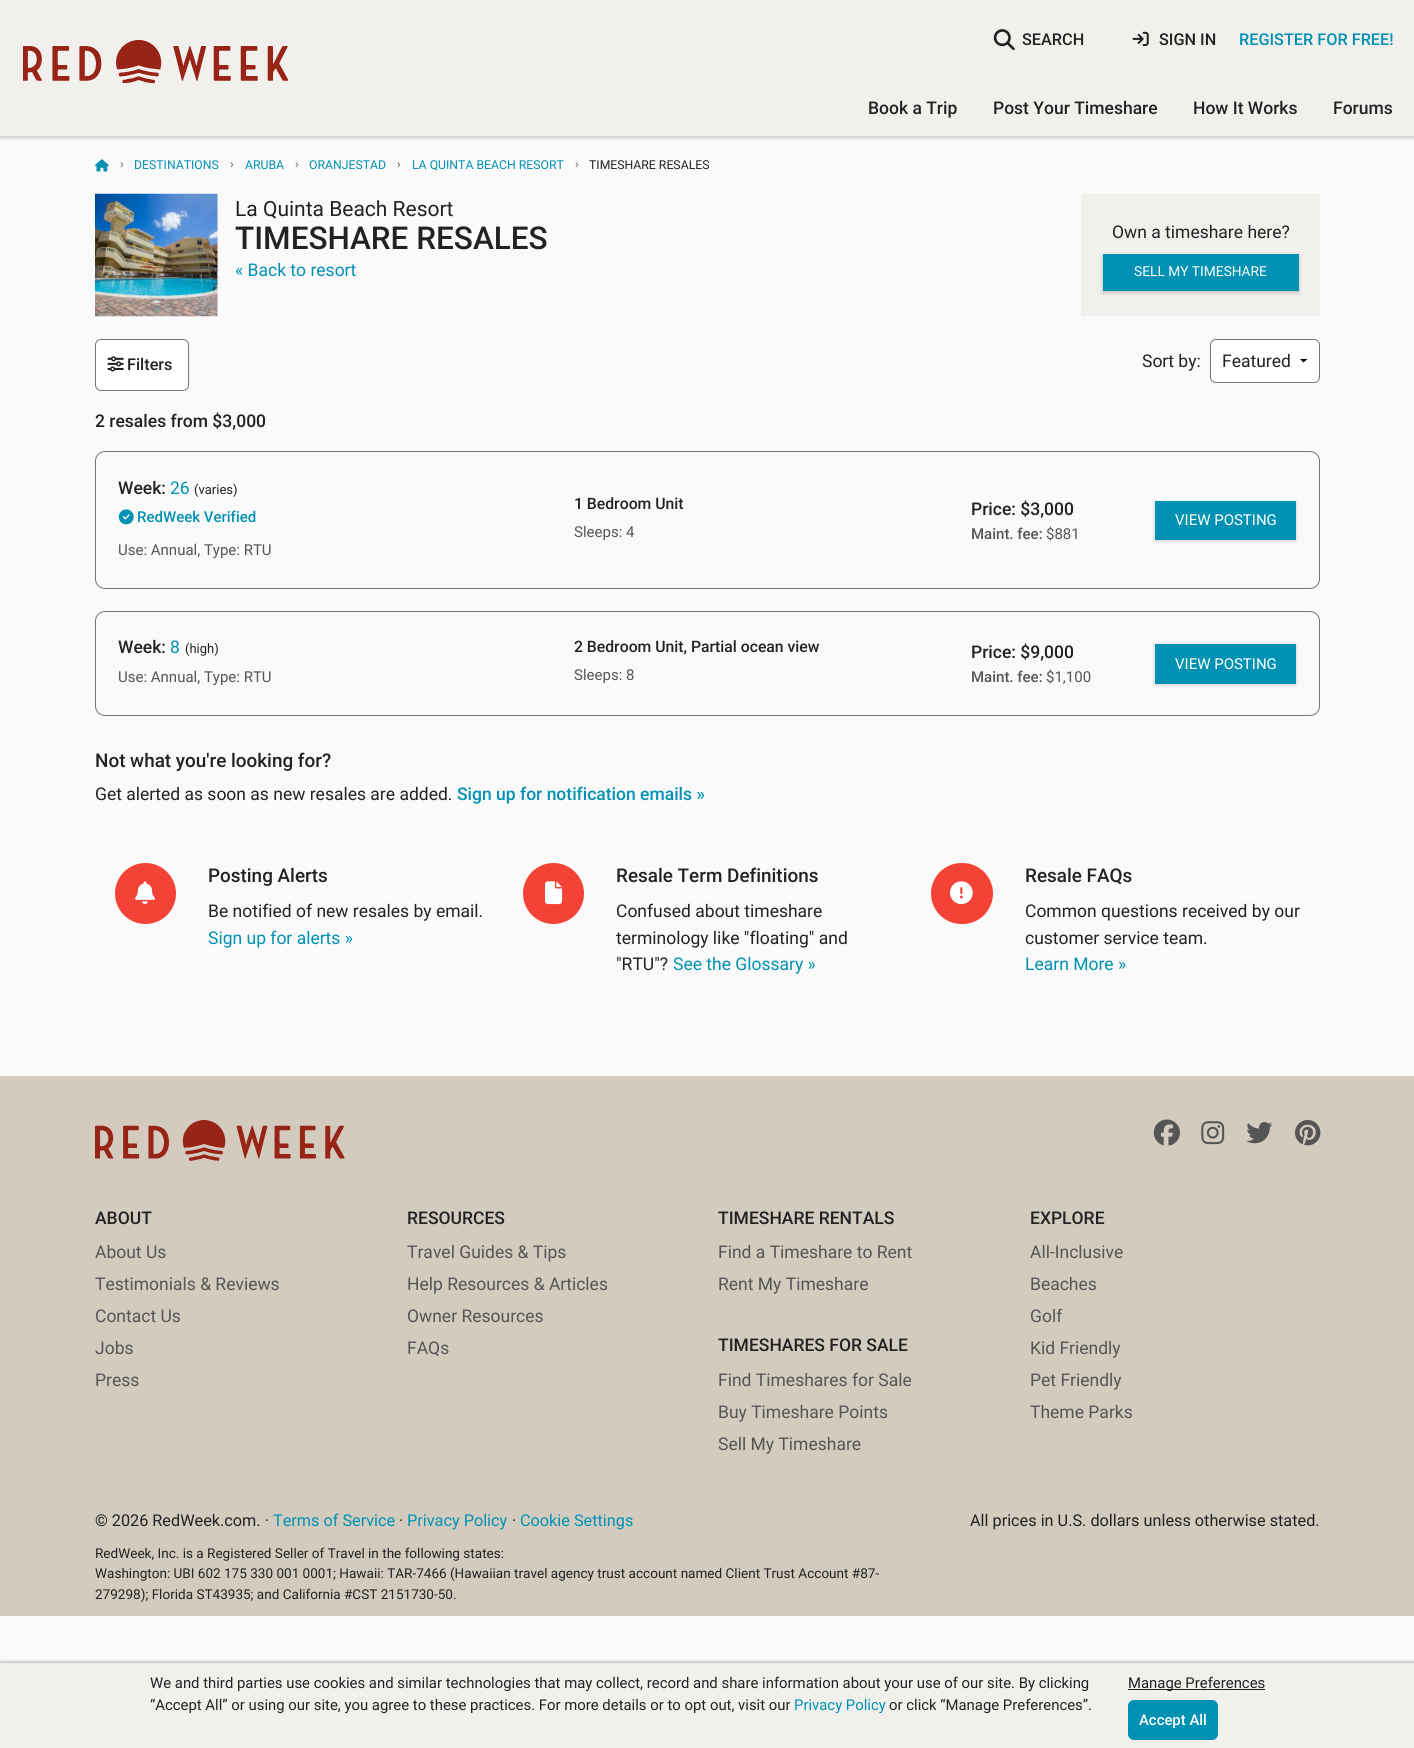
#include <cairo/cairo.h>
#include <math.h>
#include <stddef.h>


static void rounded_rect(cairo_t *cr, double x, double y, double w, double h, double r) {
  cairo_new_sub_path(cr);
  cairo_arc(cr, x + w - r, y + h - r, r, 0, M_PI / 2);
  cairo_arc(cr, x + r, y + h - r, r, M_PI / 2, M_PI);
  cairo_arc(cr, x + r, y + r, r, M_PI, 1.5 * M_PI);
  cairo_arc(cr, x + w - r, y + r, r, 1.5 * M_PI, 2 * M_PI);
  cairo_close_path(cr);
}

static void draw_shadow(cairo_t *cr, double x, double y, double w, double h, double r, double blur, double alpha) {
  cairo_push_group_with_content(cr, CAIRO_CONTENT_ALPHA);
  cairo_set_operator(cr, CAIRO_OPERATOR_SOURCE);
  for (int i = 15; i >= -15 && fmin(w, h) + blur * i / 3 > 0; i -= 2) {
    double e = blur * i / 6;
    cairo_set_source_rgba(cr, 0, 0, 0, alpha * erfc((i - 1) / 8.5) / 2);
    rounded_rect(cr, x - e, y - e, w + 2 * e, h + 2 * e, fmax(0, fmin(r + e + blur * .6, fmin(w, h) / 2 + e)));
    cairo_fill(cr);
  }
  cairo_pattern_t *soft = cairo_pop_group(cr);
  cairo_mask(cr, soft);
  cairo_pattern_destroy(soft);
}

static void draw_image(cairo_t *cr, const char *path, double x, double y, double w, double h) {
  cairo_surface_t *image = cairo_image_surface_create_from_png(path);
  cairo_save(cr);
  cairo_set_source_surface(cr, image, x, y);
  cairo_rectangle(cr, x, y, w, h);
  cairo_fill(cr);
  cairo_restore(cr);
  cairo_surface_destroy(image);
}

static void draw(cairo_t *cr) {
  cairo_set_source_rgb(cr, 250 / 255.0, 250 / 255.0, 250 / 255.0);
  cairo_paint(cr);
  cairo_set_source_rgb(cr, 0, 0, 0);
  draw_shadow(cr, 0, 1, 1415, 137, 0, 2, 0.2);
  cairo_set_source_rgb(cr, 242 / 255.0, 240 / 255.0, 237 / 255.0);
  cairo_rectangle(cr, 0, 0, 1414, 136);
  cairo_fill(cr);
  draw_image(cr, "images/1.png", 23, 40, 266, 44);
  draw_image(cr, "images/2.png", 993, 29, 22, 22);
  draw_image(cr, "images/3.png", 1132, 31, 17, 15);
  draw_image(cr, "images/4.png", 95, 159, 14, 13);
  draw_image(cr, "images/5.png", 95, 193, 123, 124);
  cairo_rectangle(cr, 1081, 194, 239, 122);
  cairo_fill(cr);
  cairo_set_source_rgb(cr, 0, 0, 0);
  draw_shadow(cr, 1103, 255, 196, 38, 0, 2, 0.2);
  cairo_set_source_rgb(cr, 0, 145 / 255.0, 179 / 255.0);
  cairo_rectangle(cr, 1103, 254, 196, 37);
  cairo_fill(cr);
  cairo_set_source_rgb(cr, 1, 1, 1);
  rounded_rect(cr, 95.5, 339.5, 93, 51, 5.5);
  cairo_fill_preserve(cr);
  cairo_set_source_rgb(cr, 118 / 255.0, 118 / 255.0, 118 / 255.0);
  cairo_set_line_width(cr, 1);
  cairo_stroke(cr);
  draw_image(cr, "images/6.png", 107, 356, 17, 16);
  cairo_set_source_rgb(cr, 1, 1, 1);
  rounded_rect(cr, 1210, 339, 110, 44, 6);
  cairo_fill(cr);
  cairo_set_source_rgb(cr, 0, 0, 0);
  cairo_new_path(cr);
  cairo_move_to(cr, 1307.5, 359);
  cairo_line_to(cr, 1303.5, 362.5);
  cairo_line_to(cr, 1300, 359);
  cairo_close_path(cr);
  cairo_fill(cr);
  rounded_rect(cr, 1210.5, 339.5, 109, 43, 5.5);
  cairo_set_source_rgb(cr, 118 / 255.0, 118 / 255.0, 118 / 255.0);
  cairo_stroke(cr);
  rounded_rect(cr, 95.5, 451.5, 1224, 137, 9.5);
  cairo_stroke(cr);
  draw_image(cr, "images/7.png", 118, 509, 16, 16);
  cairo_set_source_rgb(cr, 0, 0, 0);
  draw_shadow(cr, 1155, 503, 141, 38, 0, 2, 0.2);
  cairo_set_source_rgb(cr, 0, 145 / 255.0, 179 / 255.0);
  cairo_rectangle(cr, 1155, 501, 141, 39);
  cairo_fill(cr);
  rounded_rect(cr, 95.5, 611.5, 1224, 104, 9.5);
  cairo_set_source_rgb(cr, 118 / 255.0, 118 / 255.0, 118 / 255.0);
  cairo_stroke(cr);
  cairo_set_source_rgb(cr, 0, 0, 0);
  draw_shadow(cr, 1155, 645, 141, 40, 0, 2, 0.2);
  cairo_set_source_rgb(cr, 0, 145 / 255.0, 179 / 255.0);
  cairo_rectangle(cr, 1155, 644, 141, 40);
  cairo_fill(cr);
  cairo_set_source_rgb(cr, 244 / 255.0, 67 / 255.0, 54 / 255.0);
  cairo_arc(cr, 145.5, 893.5, 30.5, 0, 2 * M_PI);
  cairo_fill(cr);
  draw_image(cr, "images/8.png", 135, 881, 20, 24);
  cairo_arc(cr, 553.5, 893.5, 30.5, 0, 2 * M_PI);
  cairo_fill(cr);
  draw_image(cr, "images/9.png", 545, 881, 18, 24);
  rounded_rect(cr, 931, 863, 62, 61, 30.5);
  cairo_fill(cr);
  draw_image(cr, "images/10.png", 950, 881, 23, 24);
  cairo_set_source_rgb(cr, 212 / 255.0, 203 / 255.0, 191 / 255.0);
  cairo_rectangle(cr, 0, 1076, 1414, 540);
  cairo_fill(cr);
  draw_image(cr, "images/11.png", 95, 1120, 250, 41);
  draw_image(cr, "images/12.png", 1153, 1119, 27, 27);
  draw_image(cr, "images/13.png", 1201, 1121, 24, 24);
  draw_image(cr, "images/14.png", 1246, 1122, 27, 22);
  draw_image(cr, "images/15.png", 1295, 1119, 26, 27);
  cairo_set_source_rgb(cr, 0, 0, 0);
  draw_shadow(cr, 0, 1661, 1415, 87, 0, 1, 0.2);
  cairo_set_source_rgb(cr, 242 / 255.0, 240 / 255.0, 237 / 255.0);
  cairo_rectangle(cr, 0, 1663, 1414, 85);
  cairo_fill(cr);
  cairo_set_source_rgb(cr, 34 / 255.0, 34 / 255.0, 34 / 255.0);
  cairo_rectangle(cr, 1128, 1689, 137, 1);
  cairo_fill(cr);
  cairo_set_source_rgb(cr, 0, 145 / 255.0, 179 / 255.0);
  rounded_rect(cr, 1128, 1700, 90, 40, 6);
  cairo_fill(cr);
  cairo_select_font_face(cr, "Roboto Medium", CAIRO_FONT_SLANT_NORMAL, CAIRO_FONT_WEIGHT_NORMAL);
  cairo_set_font_size(cr, 16.25);
  cairo_set_source_rgb(cr, 34 / 255.0, 34 / 255.0, 34 / 255.0);
  cairo_move_to(cr, 1022, 45);
  cairo_show_text(cr, "SEARCH");
  cairo_move_to(cr, 1159, 45);
  cairo_show_text(cr, "SIGN IN");
  cairo_set_source_rgb(cr, 0, 145 / 255.0, 179 / 255.0);
  cairo_move_to(cr, 1239, 45);
  cairo_show_text(cr, "REGISTER FOR FREE!");
  cairo_set_font_size(cr, 17.5);
  cairo_set_source_rgb(cr, 34 / 255.0, 34 / 255.0, 34 / 255.0);
  cairo_move_to(cr, 868, 114);
  cairo_show_text(cr, "Book a Trip");
  cairo_move_to(cr, 993, 114);
  cairo_show_text(cr, "Post Your Timeshare");
  cairo_move_to(cr, 1193, 114);
  cairo_show_text(cr, "How It Works");
  cairo_move_to(cr, 1333, 114);
  cairo_show_text(cr, "Forums");
  cairo_select_font_face(cr, "Roboto", CAIRO_FONT_SLANT_NORMAL, CAIRO_FONT_WEIGHT_NORMAL);
  cairo_set_font_size(cr, 12.25);
  cairo_set_source_rgb(cr, 99 / 255.0, 99 / 255.0, 99 / 255.0);
  cairo_move_to(cr, 120, 168);
  cairo_show_text(cr, "›");
  cairo_set_source_rgb(cr, 0, 145 / 255.0, 179 / 255.0);
  cairo_move_to(cr, 134, 169);
  cairo_show_text(cr, "DESTINATIONS");
  cairo_set_source_rgb(cr, 99 / 255.0, 99 / 255.0, 99 / 255.0);
  cairo_move_to(cr, 230, 168);
  cairo_show_text(cr, "›");
  cairo_set_source_rgb(cr, 0, 145 / 255.0, 179 / 255.0);
  cairo_move_to(cr, 245, 169);
  cairo_show_text(cr, "ARUBA");
  cairo_set_source_rgb(cr, 99 / 255.0, 99 / 255.0, 99 / 255.0);
  cairo_move_to(cr, 295, 168);
  cairo_show_text(cr, "›");
  cairo_set_source_rgb(cr, 0, 145 / 255.0, 179 / 255.0);
  cairo_move_to(cr, 309, 169);
  cairo_show_text(cr, "ORANJESTAD");
  cairo_set_source_rgb(cr, 99 / 255.0, 99 / 255.0, 99 / 255.0);
  cairo_move_to(cr, 397, 168);
  cairo_show_text(cr, "›");
  cairo_set_source_rgb(cr, 0, 145 / 255.0, 179 / 255.0);
  cairo_move_to(cr, 412, 169);
  cairo_show_text(cr, "LA QUINTA BEACH RESORT");
  cairo_set_source_rgb(cr, 99 / 255.0, 99 / 255.0, 99 / 255.0);
  cairo_move_to(cr, 575, 168);
  cairo_show_text(cr, "›");
  cairo_set_source_rgb(cr, 34 / 255.0, 34 / 255.0, 34 / 255.0);
  cairo_move_to(cr, 589, 169);
  cairo_show_text(cr, "TIMESHARE RESALES");
  cairo_set_font_size(cr, 21);
  cairo_move_to(cr, 235, 216);
  cairo_show_text(cr, "La Quinta Beach Resort");
  cairo_select_font_face(cr, "Roboto Medium", CAIRO_FONT_SLANT_NORMAL, CAIRO_FONT_WEIGHT_NORMAL);
  cairo_set_font_size(cr, 31.5);
  cairo_move_to(cr, 235, 249);
  cairo_show_text(cr, "TIMESHARE RESALES");
  cairo_select_font_face(cr, "Roboto", CAIRO_FONT_SLANT_NORMAL, CAIRO_FONT_WEIGHT_NORMAL);
  cairo_set_font_size(cr, 17.5);
  cairo_set_source_rgb(cr, 0, 145 / 255.0, 179 / 255.0);
  cairo_move_to(cr, 235, 276);
  cairo_show_text(cr, "« Back to resort");
  cairo_set_source_rgb(cr, 34 / 255.0, 34 / 255.0, 34 / 255.0);
  cairo_move_to(cr, 1112, 238);
  cairo_show_text(cr, "Own a timeshare here?");
  cairo_set_font_size(cr, 13.75);
  cairo_set_source_rgb(cr, 1, 1, 1);
  cairo_move_to(cr, 1134, 276);
  cairo_show_text(cr, "SELL MY TIMESHARE");
  cairo_select_font_face(cr, "Roboto Medium", CAIRO_FONT_SLANT_NORMAL, CAIRO_FONT_WEIGHT_NORMAL);
  cairo_set_font_size(cr, 16.25);
  cairo_set_source_rgb(cr, 34 / 255.0, 34 / 255.0, 34 / 255.0);
  cairo_move_to(cr, 127, 370);
  cairo_show_text(cr, "Filters");
  cairo_select_font_face(cr, "Roboto", CAIRO_FONT_SLANT_NORMAL, CAIRO_FONT_WEIGHT_NORMAL);
  cairo_set_font_size(cr, 17.5);
  cairo_move_to(cr, 1142, 367);
  cairo_show_text(cr, "Sort by:");
  cairo_move_to(cr, 1222, 367);
  cairo_show_text(cr, "Featured");
  cairo_select_font_face(cr, "Roboto Medium", CAIRO_FONT_SLANT_NORMAL, CAIRO_FONT_WEIGHT_NORMAL);
  cairo_move_to(cr, 95, 427);
  cairo_show_text(cr, "2 resales from $3,000");
  cairo_move_to(cr, 118, 494);
  cairo_show_text(cr, "Week:");
  cairo_select_font_face(cr, "Roboto", CAIRO_FONT_SLANT_NORMAL, CAIRO_FONT_WEIGHT_NORMAL);
  cairo_set_source_rgb(cr, 0, 145 / 255.0, 179 / 255.0);
  cairo_move_to(cr, 170, 494);
  cairo_show_text(cr, "26");
  cairo_set_font_size(cr, 13);
  cairo_set_source_rgb(cr, 34 / 255.0, 34 / 255.0, 34 / 255.0);
  cairo_move_to(cr, 194, 494);
  cairo_show_text(cr, "(varies)");
  cairo_select_font_face(cr, "Roboto Medium", CAIRO_FONT_SLANT_NORMAL, CAIRO_FONT_WEIGHT_NORMAL);
  cairo_set_font_size(cr, 15);
  cairo_set_source_rgb(cr, 0, 145 / 255.0, 179 / 255.0);
  cairo_move_to(cr, 137, 522);
  cairo_show_text(cr, "RedWeek Verified");
  cairo_select_font_face(cr, "Roboto", CAIRO_FONT_SLANT_NORMAL, CAIRO_FONT_WEIGHT_NORMAL);
  cairo_set_source_rgb(cr, 85 / 255.0, 85 / 255.0, 85 / 255.0);
  cairo_move_to(cr, 118, 555);
  cairo_show_text(cr, "Use: Annual, Type: RTU");
  cairo_select_font_face(cr, "Roboto Medium", CAIRO_FONT_SLANT_NORMAL, CAIRO_FONT_WEIGHT_NORMAL);
  cairo_set_font_size(cr, 15.75);
  cairo_set_source_rgb(cr, 34 / 255.0, 34 / 255.0, 34 / 255.0);
  cairo_move_to(cr, 574, 509);
  cairo_show_text(cr, "1 Bedroom Unit");
  cairo_select_font_face(cr, "Roboto", CAIRO_FONT_SLANT_NORMAL, CAIRO_FONT_WEIGHT_NORMAL);
  cairo_set_font_size(cr, 15);
  cairo_set_source_rgb(cr, 85 / 255.0, 85 / 255.0, 85 / 255.0);
  cairo_move_to(cr, 574, 537);
  cairo_show_text(cr, "Sleeps: 4");
  cairo_select_font_face(cr, "Roboto Medium", CAIRO_FONT_SLANT_NORMAL, CAIRO_FONT_WEIGHT_NORMAL);
  cairo_set_font_size(cr, 17.5);
  cairo_set_source_rgb(cr, 34 / 255.0, 34 / 255.0, 34 / 255.0);
  cairo_move_to(cr, 971, 515);
  cairo_show_text(cr, "Price: $3,000");
  cairo_set_font_size(cr, 15);
  cairo_set_source_rgb(cr, 85 / 255.0, 85 / 255.0, 85 / 255.0);
  cairo_move_to(cr, 971, 539);
  cairo_show_text(cr, "Maint. fee:");
  cairo_select_font_face(cr, "Roboto", CAIRO_FONT_SLANT_NORMAL, CAIRO_FONT_WEIGHT_NORMAL);
  cairo_move_to(cr, 1046, 539);
  cairo_show_text(cr, "$881");
  cairo_set_source_rgb(cr, 1, 1, 1);
  cairo_move_to(cr, 1175, 525);
  cairo_show_text(cr, "VIEW POSTING");
  cairo_select_font_face(cr, "Roboto Medium", CAIRO_FONT_SLANT_NORMAL, CAIRO_FONT_WEIGHT_NORMAL);
  cairo_set_font_size(cr, 17.5);
  cairo_set_source_rgb(cr, 34 / 255.0, 34 / 255.0, 34 / 255.0);
  cairo_move_to(cr, 118, 653);
  cairo_show_text(cr, "Week:");
  cairo_select_font_face(cr, "Roboto", CAIRO_FONT_SLANT_NORMAL, CAIRO_FONT_WEIGHT_NORMAL);
  cairo_set_source_rgb(cr, 0, 145 / 255.0, 179 / 255.0);
  cairo_move_to(cr, 170, 653);
  cairo_show_text(cr, "8");
  cairo_set_font_size(cr, 13);
  cairo_set_source_rgb(cr, 34 / 255.0, 34 / 255.0, 34 / 255.0);
  cairo_move_to(cr, 185, 653);
  cairo_show_text(cr, "(high)");
  cairo_set_font_size(cr, 15);
  cairo_set_source_rgb(cr, 85 / 255.0, 85 / 255.0, 85 / 255.0);
  cairo_move_to(cr, 118, 682);
  cairo_show_text(cr, "Use: Annual, Type: RTU");
  cairo_select_font_face(cr, "Roboto Medium", CAIRO_FONT_SLANT_NORMAL, CAIRO_FONT_WEIGHT_NORMAL);
  cairo_set_font_size(cr, 15.75);
  cairo_set_source_rgb(cr, 34 / 255.0, 34 / 255.0, 34 / 255.0);
  cairo_move_to(cr, 574, 652);
  cairo_show_text(cr, "2 Bedroom Unit, Partial ocean view");
  cairo_select_font_face(cr, "Roboto", CAIRO_FONT_SLANT_NORMAL, CAIRO_FONT_WEIGHT_NORMAL);
  cairo_set_font_size(cr, 15);
  cairo_set_source_rgb(cr, 85 / 255.0, 85 / 255.0, 85 / 255.0);
  cairo_move_to(cr, 574, 680);
  cairo_show_text(cr, "Sleeps: 8");
  cairo_select_font_face(cr, "Roboto Medium", CAIRO_FONT_SLANT_NORMAL, CAIRO_FONT_WEIGHT_NORMAL);
  cairo_set_font_size(cr, 17.5);
  cairo_set_source_rgb(cr, 34 / 255.0, 34 / 255.0, 34 / 255.0);
  cairo_move_to(cr, 971, 658);
  cairo_show_text(cr, "Price: $9,000");
  cairo_set_font_size(cr, 15);
  cairo_set_source_rgb(cr, 85 / 255.0, 85 / 255.0, 85 / 255.0);
  cairo_move_to(cr, 971, 682);
  cairo_show_text(cr, "Maint. fee:");
  cairo_select_font_face(cr, "Roboto", CAIRO_FONT_SLANT_NORMAL, CAIRO_FONT_WEIGHT_NORMAL);
  cairo_move_to(cr, 1046, 682);
  cairo_show_text(cr, "$1,100");
  cairo_set_source_rgb(cr, 1, 1, 1);
  cairo_move_to(cr, 1175, 669);
  cairo_show_text(cr, "VIEW POSTING");
  cairo_select_font_face(cr, "Roboto Medium", CAIRO_FONT_SLANT_NORMAL, CAIRO_FONT_WEIGHT_NORMAL);
  cairo_set_font_size(cr, 18.9);
  cairo_set_source_rgb(cr, 34 / 255.0, 34 / 255.0, 34 / 255.0);
  cairo_move_to(cr, 95, 767);
  cairo_show_text(cr, "Not what you're looking for?");
  cairo_select_font_face(cr, "Roboto", CAIRO_FONT_SLANT_NORMAL, CAIRO_FONT_WEIGHT_NORMAL);
  cairo_set_font_size(cr, 17.5);
  cairo_move_to(cr, 95, 800);
  cairo_show_text(cr, "Get alerted as soon as new resales are added.");
  cairo_select_font_face(cr, "Roboto Medium", CAIRO_FONT_SLANT_NORMAL, CAIRO_FONT_WEIGHT_NORMAL);
  cairo_set_source_rgb(cr, 0, 145 / 255.0, 179 / 255.0);
  cairo_move_to(cr, 457, 800);
  cairo_show_text(cr, "Sign up for notification emails »");
  cairo_set_font_size(cr, 18.9);
  cairo_set_source_rgb(cr, 34 / 255.0, 34 / 255.0, 34 / 255.0);
  cairo_move_to(cr, 208, 882);
  cairo_show_text(cr, "Posting Alerts");
  cairo_select_font_face(cr, "Roboto", CAIRO_FONT_SLANT_NORMAL, CAIRO_FONT_WEIGHT_NORMAL);
  cairo_set_font_size(cr, 17.5);
  cairo_move_to(cr, 208, 917);
  cairo_show_text(cr, "Be notified of new resales by email.");
  cairo_set_source_rgb(cr, 0, 145 / 255.0, 179 / 255.0);
  cairo_move_to(cr, 208, 944);
  cairo_show_text(cr, "Sign up for alerts »");
  cairo_select_font_face(cr, "Roboto Medium", CAIRO_FONT_SLANT_NORMAL, CAIRO_FONT_WEIGHT_NORMAL);
  cairo_set_font_size(cr, 18.9);
  cairo_set_source_rgb(cr, 34 / 255.0, 34 / 255.0, 34 / 255.0);
  cairo_move_to(cr, 616, 882);
  cairo_show_text(cr, "Resale Term Definitions");
  cairo_select_font_face(cr, "Roboto", CAIRO_FONT_SLANT_NORMAL, CAIRO_FONT_WEIGHT_NORMAL);
  cairo_set_font_size(cr, 17.5);
  cairo_move_to(cr, 616, 917);
  cairo_show_text(cr, "Confused about timeshare");
  cairo_move_to(cr, 616, 944);
  cairo_show_text(cr, "terminology like \"floating\" and");
  cairo_move_to(cr, 616, 970);
  cairo_show_text(cr, "\"RTU\"?");
  cairo_set_source_rgb(cr, 0, 145 / 255.0, 179 / 255.0);
  cairo_move_to(cr, 673, 970);
  cairo_show_text(cr, "See the Glossary »");
  cairo_select_font_face(cr, "Roboto Medium", CAIRO_FONT_SLANT_NORMAL, CAIRO_FONT_WEIGHT_NORMAL);
  cairo_set_font_size(cr, 18.9);
  cairo_set_source_rgb(cr, 34 / 255.0, 34 / 255.0, 34 / 255.0);
  cairo_move_to(cr, 1025, 882);
  cairo_show_text(cr, "Resale FAQs");
  cairo_select_font_face(cr, "Roboto", CAIRO_FONT_SLANT_NORMAL, CAIRO_FONT_WEIGHT_NORMAL);
  cairo_set_font_size(cr, 17.5);
  cairo_move_to(cr, 1025, 917);
  cairo_show_text(cr, "Common questions received by our");
  cairo_move_to(cr, 1025, 944);
  cairo_show_text(cr, "customer service team.");
  cairo_set_source_rgb(cr, 0, 145 / 255.0, 179 / 255.0);
  cairo_move_to(cr, 1025, 970);
  cairo_show_text(cr, "Learn More »");
  cairo_select_font_face(cr, "Roboto Medium", CAIRO_FONT_SLANT_NORMAL, CAIRO_FONT_WEIGHT_NORMAL);
  cairo_set_source_rgb(cr, 34 / 255.0, 34 / 255.0, 34 / 255.0);
  cairo_move_to(cr, 95, 1224);
  cairo_show_text(cr, "ABOUT");
  cairo_select_font_face(cr, "Roboto", CAIRO_FONT_SLANT_NORMAL, CAIRO_FONT_WEIGHT_NORMAL);
  cairo_set_source_rgb(cr, 85 / 255.0, 85 / 255.0, 85 / 255.0);
  cairo_move_to(cr, 95, 1258);
  cairo_show_text(cr, "About Us");
  cairo_move_to(cr, 95, 1290);
  cairo_show_text(cr, "Testimonials & Reviews");
  cairo_move_to(cr, 95, 1322);
  cairo_show_text(cr, "Contact Us");
  cairo_move_to(cr, 95, 1354);
  cairo_show_text(cr, "Jobs");
  cairo_move_to(cr, 95, 1386);
  cairo_show_text(cr, "Press");
  cairo_select_font_face(cr, "Roboto Medium", CAIRO_FONT_SLANT_NORMAL, CAIRO_FONT_WEIGHT_NORMAL);
  cairo_set_source_rgb(cr, 34 / 255.0, 34 / 255.0, 34 / 255.0);
  cairo_move_to(cr, 407, 1224);
  cairo_show_text(cr, "RESOURCES");
  cairo_select_font_face(cr, "Roboto", CAIRO_FONT_SLANT_NORMAL, CAIRO_FONT_WEIGHT_NORMAL);
  cairo_set_source_rgb(cr, 85 / 255.0, 85 / 255.0, 85 / 255.0);
  cairo_move_to(cr, 407, 1258);
  cairo_show_text(cr, "Travel Guides & Tips");
  cairo_move_to(cr, 407, 1290);
  cairo_show_text(cr, "Help Resources & Articles");
  cairo_move_to(cr, 407, 1322);
  cairo_show_text(cr, "Owner Resources");
  cairo_move_to(cr, 407, 1354);
  cairo_show_text(cr, "FAQs");
  cairo_select_font_face(cr, "Roboto Medium", CAIRO_FONT_SLANT_NORMAL, CAIRO_FONT_WEIGHT_NORMAL);
  cairo_set_source_rgb(cr, 34 / 255.0, 34 / 255.0, 34 / 255.0);
  cairo_move_to(cr, 718, 1224);
  cairo_show_text(cr, "TIMESHARE RENTALS");
  cairo_select_font_face(cr, "Roboto", CAIRO_FONT_SLANT_NORMAL, CAIRO_FONT_WEIGHT_NORMAL);
  cairo_set_source_rgb(cr, 85 / 255.0, 85 / 255.0, 85 / 255.0);
  cairo_move_to(cr, 718, 1258);
  cairo_show_text(cr, "Find a Timeshare to Rent");
  cairo_move_to(cr, 718, 1290);
  cairo_show_text(cr, "Rent My Timeshare");
  cairo_select_font_face(cr, "Roboto Medium", CAIRO_FONT_SLANT_NORMAL, CAIRO_FONT_WEIGHT_NORMAL);
  cairo_set_source_rgb(cr, 34 / 255.0, 34 / 255.0, 34 / 255.0);
  cairo_move_to(cr, 718, 1351);
  cairo_show_text(cr, "TIMESHARES FOR SALE");
  cairo_select_font_face(cr, "Roboto", CAIRO_FONT_SLANT_NORMAL, CAIRO_FONT_WEIGHT_NORMAL);
  cairo_set_source_rgb(cr, 85 / 255.0, 85 / 255.0, 85 / 255.0);
  cairo_move_to(cr, 718, 1386);
  cairo_show_text(cr, "Find Timeshares for Sale");
  cairo_move_to(cr, 718, 1418);
  cairo_show_text(cr, "Buy Timeshare Points");
  cairo_move_to(cr, 718, 1450);
  cairo_show_text(cr, "Sell My Timeshare");
  cairo_select_font_face(cr, "Roboto Medium", CAIRO_FONT_SLANT_NORMAL, CAIRO_FONT_WEIGHT_NORMAL);
  cairo_set_source_rgb(cr, 34 / 255.0, 34 / 255.0, 34 / 255.0);
  cairo_move_to(cr, 1030, 1224);
  cairo_show_text(cr, "EXPLORE");
  cairo_select_font_face(cr, "Roboto", CAIRO_FONT_SLANT_NORMAL, CAIRO_FONT_WEIGHT_NORMAL);
  cairo_set_source_rgb(cr, 85 / 255.0, 85 / 255.0, 85 / 255.0);
  cairo_move_to(cr, 1030, 1258);
  cairo_show_text(cr, "All-Inclusive");
  cairo_move_to(cr, 1030, 1290);
  cairo_show_text(cr, "Beaches");
  cairo_move_to(cr, 1030, 1322);
  cairo_show_text(cr, "Golf");
  cairo_move_to(cr, 1030, 1354);
  cairo_show_text(cr, "Kid Friendly");
  cairo_move_to(cr, 1030, 1386);
  cairo_show_text(cr, "Pet Friendly");
  cairo_move_to(cr, 1030, 1418);
  cairo_show_text(cr, "Theme Parks");
  cairo_set_font_size(cr, 16.25);
  cairo_set_source_rgb(cr, 34 / 255.0, 34 / 255.0, 34 / 255.0);
  cairo_move_to(cr, 95, 1526);
  cairo_show_text(cr, "© 2026 RedWeek.com. ·");
  cairo_set_source_rgb(cr, 0, 145 / 255.0, 179 / 255.0);
  cairo_move_to(cr, 273, 1526);
  cairo_show_text(cr, "Terms of Service");
  cairo_set_source_rgb(cr, 34 / 255.0, 34 / 255.0, 34 / 255.0);
  cairo_move_to(cr, 399, 1526);
  cairo_show_text(cr, "·");
  cairo_set_source_rgb(cr, 0, 145 / 255.0, 179 / 255.0);
  cairo_move_to(cr, 407, 1526);
  cairo_show_text(cr, "Privacy Policy");
  cairo_set_source_rgb(cr, 34 / 255.0, 34 / 255.0, 34 / 255.0);
  cairo_move_to(cr, 512, 1526);
  cairo_show_text(cr, "·");
  cairo_set_source_rgb(cr, 0, 145 / 255.0, 179 / 255.0);
  cairo_move_to(cr, 520, 1526);
  cairo_show_text(cr, "Cookie Settings");
  cairo_set_source_rgb(cr, 34 / 255.0, 34 / 255.0, 34 / 255.0);
  cairo_move_to(cr, 970, 1526);
  cairo_show_text(cr, "All prices in U.S. dollars unless otherwise stated.");
  cairo_set_font_size(cr, 13.55);
  cairo_move_to(cr, 95, 1558);
  cairo_show_text(cr, "RedWeek, Inc. is a Registered Seller of Travel in the following states:");
  cairo_move_to(cr, 95, 1578);
  cairo_show_text(cr, "Washington: UBI 602 175 330 001 0001; Hawaii: TAR-7466 (Hawaiian travel agency trust account named Client Trust Account #87-");
  cairo_move_to(cr, 95, 1599);
  cairo_show_text(cr, "279298); Florida ST43935; and California #CST 2151730-50.");
  cairo_set_font_size(cr, 14.88);
  cairo_move_to(cr, 150, 1688);
  cairo_show_text(cr, "We and third parties use cookies and similar technologies that may collect, record and share information about your use of our site. By clicking");
  cairo_move_to(cr, 150, 1710);
  cairo_show_text(cr, "“Accept All” or using our site, you agree to these practices. For more details or to opt out, visit our");
  cairo_set_source_rgb(cr, 0, 145 / 255.0, 179 / 255.0);
  cairo_move_to(cr, 794, 1710);
  cairo_show_text(cr, "Privacy Policy");
  cairo_set_source_rgb(cr, 34 / 255.0, 34 / 255.0, 34 / 255.0);
  cairo_move_to(cr, 889, 1710);
  cairo_show_text(cr, "or click “Manage Preferences”.");
  cairo_move_to(cr, 1128, 1688);
  cairo_show_text(cr, "Manage Preferences");
  cairo_select_font_face(cr, "Roboto Medium", CAIRO_FONT_SLANT_NORMAL, CAIRO_FONT_WEIGHT_NORMAL);
  cairo_set_source_rgb(cr, 1, 1, 1);
  cairo_move_to(cr, 1139, 1725);
  cairo_show_text(cr, "Accept All");
}

int main(void) {
  cairo_surface_t *surface = cairo_image_surface_create(CAIRO_FORMAT_RGB24, 1414, 1748);
  cairo_t *cr = cairo_create(surface);
  cairo_font_options_t *options = cairo_font_options_create();
  cairo_font_options_set_hint_metrics(options, CAIRO_HINT_METRICS_OFF);
  cairo_font_options_set_hint_style(options, CAIRO_HINT_STYLE_NONE);
  cairo_set_font_options(cr, options);
  cairo_set_miter_limit(cr, 4);
  draw(cr);
  cairo_surface_write_to_png(surface, "out.png");
  cairo_font_options_destroy(options);
  cairo_destroy(cr);
  cairo_surface_destroy(surface);
  return 0;
}
